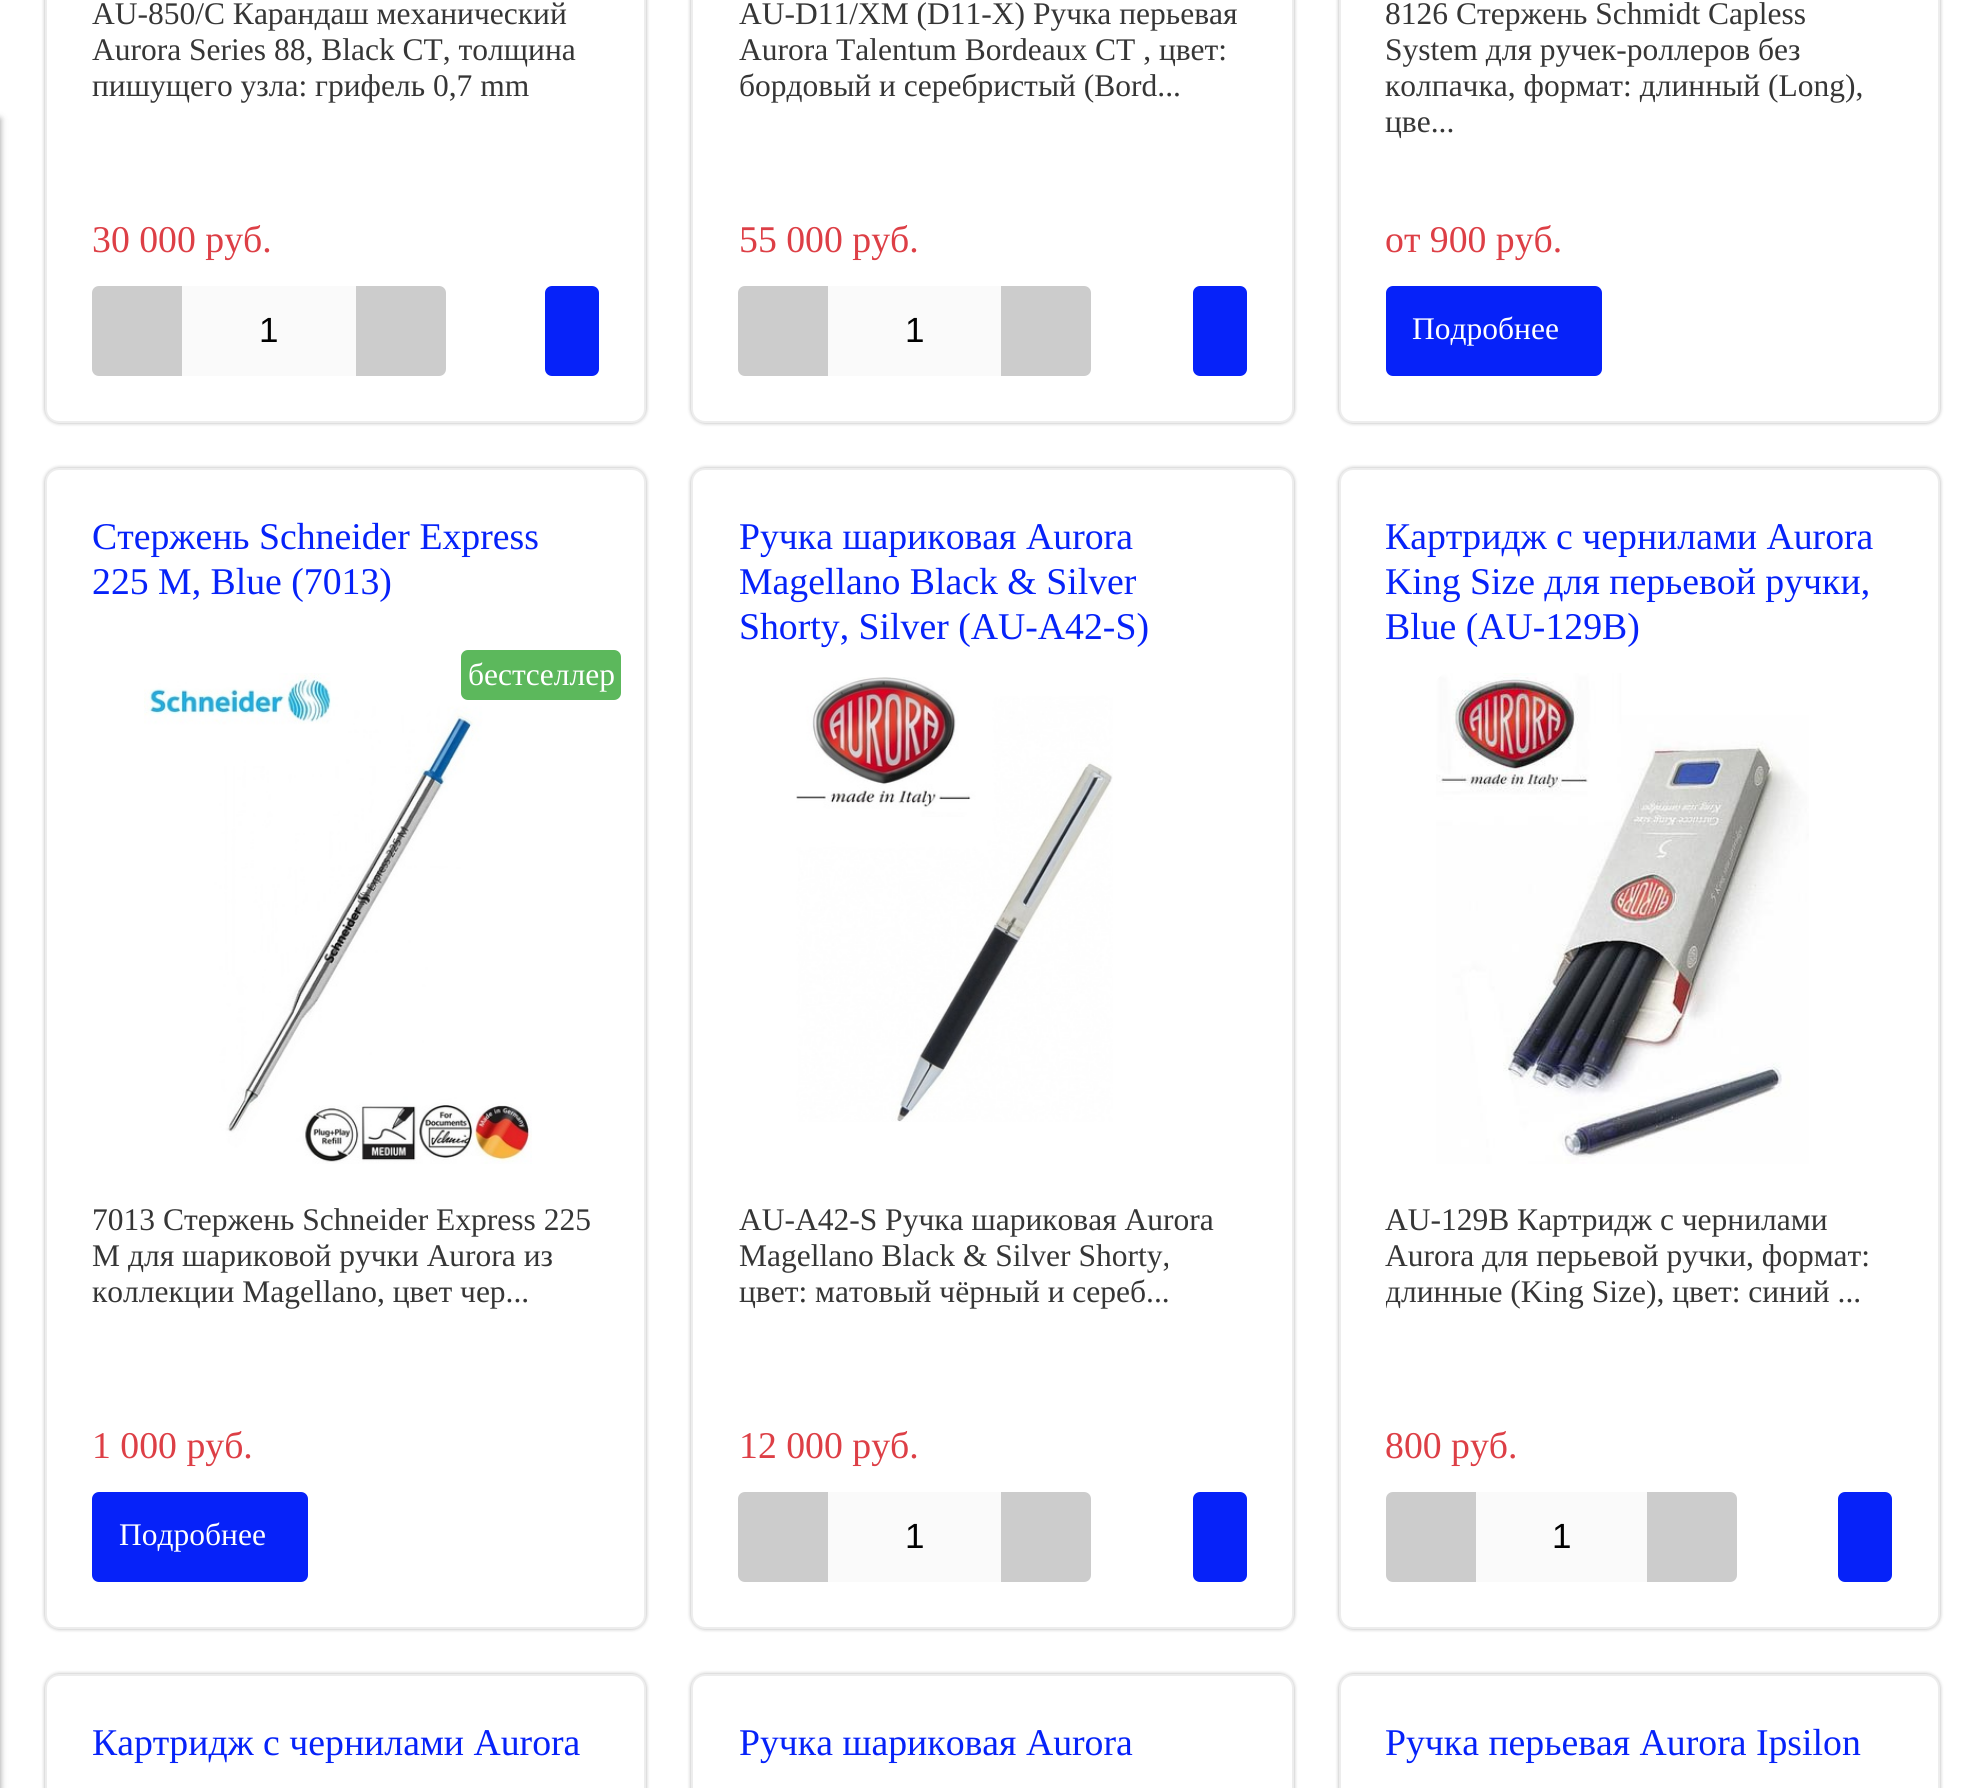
#include <cairo/cairo.h>
#include <math.h>
#include <stddef.h>


static void rounded_rect(cairo_t *cr, double x, double y, double w, double h, double r) {
  cairo_new_sub_path(cr);
  cairo_arc(cr, x + w - r, y + h - r, r, 0, M_PI / 2);
  cairo_arc(cr, x + r, y + h - r, r, M_PI / 2, M_PI);
  cairo_arc(cr, x + r, y + r, r, M_PI, 1.5 * M_PI);
  cairo_arc(cr, x + w - r, y + r, r, 1.5 * M_PI, 2 * M_PI);
  cairo_close_path(cr);
}

static void draw_shadow(cairo_t *cr, double x, double y, double w, double h, double r, double blur, double alpha) {
  cairo_push_group_with_content(cr, CAIRO_CONTENT_ALPHA);
  cairo_set_operator(cr, CAIRO_OPERATOR_SOURCE);
  for (int i = 15; i >= -15 && fmin(w, h) + blur * i / 3 > 0; i -= 2) {
    double e = blur * i / 6;
    cairo_set_source_rgba(cr, 0, 0, 0, alpha * erfc((i - 1) / 8.5) / 2);
    rounded_rect(cr, x - e, y - e, w + 2 * e, h + 2 * e, fmax(0, fmin(r + e + blur * .6, fmin(w, h) / 2 + e)));
    cairo_fill(cr);
  }
  cairo_pattern_t *soft = cairo_pop_group(cr);
  cairo_mask(cr, soft);
  cairo_pattern_destroy(soft);
}

static void draw_image(cairo_t *cr, const char *path, double x, double y, double w, double h) {
  cairo_surface_t *image = cairo_image_surface_create_from_png(path);
  cairo_save(cr);
  cairo_set_source_surface(cr, image, x, y);
  cairo_rectangle(cr, x, y, w, h);
  cairo_fill(cr);
  cairo_restore(cr);
  cairo_surface_destroy(image);
}

static void draw(cairo_t *cr) {
  cairo_set_source_rgb(cr, 1, 1, 1);
  cairo_paint(cr);
  cairo_set_source_rgb(cr, 0, 0, 0);
  draw_shadow(cr, -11, 119, 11, 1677, 0, 3.5, 0.4);
  draw_shadow(cr, 45, -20, 601, 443, 14, 2, 0.3);
  cairo_set_source_rgb(cr, 1, 1, 1);
  rounded_rect(cr, 46, -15, 599, 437, 13);
  cairo_fill_preserve(cr);
  cairo_set_source_rgb(cr, 237 / 255.0, 237 / 255.0, 237 / 255.0);
  cairo_stroke(cr);
  cairo_set_source_rgb(cr, 204 / 255.0, 204 / 255.0, 204 / 255.0);
  cairo_new_path(cr);
  cairo_move_to(cr, 99, 286);
  cairo_line_to(cr, 182, 286);
  cairo_line_to(cr, 182, 376);
  cairo_line_to(cr, 99, 376);
  cairo_curve_to(cr, 95, 376, 92, 373, 92, 369);
  cairo_line_to(cr, 92, 293);
  cairo_curve_to(cr, 92, 289, 95, 286, 99, 286);
  cairo_close_path(cr);
  cairo_fill(cr);
  cairo_set_source_rgb(cr, 250 / 255.0, 250 / 255.0, 250 / 255.0);
  cairo_rectangle(cr, 182, 286, 174, 90);
  cairo_fill(cr);
  cairo_set_source_rgb(cr, 204 / 255.0, 204 / 255.0, 204 / 255.0);
  cairo_new_path(cr);
  cairo_move_to(cr, 356, 286);
  cairo_line_to(cr, 439, 286);
  cairo_curve_to(cr, 443, 286, 446, 289, 446, 293);
  cairo_line_to(cr, 446, 369);
  cairo_curve_to(cr, 446, 373, 443, 376, 439, 376);
  cairo_line_to(cr, 356, 376);
  cairo_close_path(cr);
  cairo_fill(cr);
  cairo_set_source_rgb(cr, 6 / 255.0, 34 / 255.0, 249 / 255.0);
  rounded_rect(cr, 545, 286, 54, 90, 7);
  cairo_fill(cr);
  cairo_set_source_rgb(cr, 0, 0, 0);
  draw_shadow(cr, 691, -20, 603, 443, 14, 2, 0.3);
  cairo_set_source_rgb(cr, 1, 1, 1);
  rounded_rect(cr, 692, -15, 601, 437, 13);
  cairo_fill_preserve(cr);
  cairo_set_source_rgb(cr, 237 / 255.0, 237 / 255.0, 237 / 255.0);
  cairo_stroke(cr);
  cairo_set_source_rgb(cr, 204 / 255.0, 204 / 255.0, 204 / 255.0);
  cairo_new_path(cr);
  cairo_move_to(cr, 745, 286);
  cairo_line_to(cr, 828, 286);
  cairo_line_to(cr, 828, 376);
  cairo_line_to(cr, 745, 376);
  cairo_curve_to(cr, 741, 376, 738, 373, 738, 369);
  cairo_line_to(cr, 738, 293);
  cairo_curve_to(cr, 738, 289, 741, 286, 745, 286);
  cairo_close_path(cr);
  cairo_fill(cr);
  cairo_set_source_rgb(cr, 250 / 255.0, 250 / 255.0, 250 / 255.0);
  cairo_rectangle(cr, 828, 286, 173, 90);
  cairo_fill(cr);
  cairo_set_source_rgb(cr, 204 / 255.0, 204 / 255.0, 204 / 255.0);
  cairo_new_path(cr);
  cairo_move_to(cr, 1001, 286);
  cairo_line_to(cr, 1084, 286);
  cairo_curve_to(cr, 1088, 286, 1091, 289, 1091, 293);
  cairo_line_to(cr, 1091, 369);
  cairo_curve_to(cr, 1091, 373, 1088, 376, 1084, 376);
  cairo_line_to(cr, 1001, 376);
  cairo_close_path(cr);
  cairo_fill(cr);
  cairo_set_source_rgb(cr, 6 / 255.0, 34 / 255.0, 249 / 255.0);
  rounded_rect(cr, 1193, 286, 54, 90, 7);
  cairo_fill(cr);
  cairo_set_source_rgb(cr, 0, 0, 0);
  draw_shadow(cr, 1339, -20, 601, 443, 14, 2, 0.3);
  cairo_set_source_rgb(cr, 1, 1, 1);
  rounded_rect(cr, 1340, -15, 599, 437, 13);
  cairo_fill_preserve(cr);
  cairo_set_source_rgb(cr, 237 / 255.0, 237 / 255.0, 237 / 255.0);
  cairo_stroke(cr);
  cairo_set_source_rgb(cr, 6 / 255.0, 34 / 255.0, 249 / 255.0);
  rounded_rect(cr, 1386, 286, 216, 90, 7);
  cairo_fill(cr);
  cairo_set_source_rgb(cr, 0, 0, 0);
  draw_shadow(cr, 45, 468, 601, 1161, 14, 2, 0.3);
  cairo_set_source_rgb(cr, 1, 1, 1);
  rounded_rect(cr, 46, 469, 599, 1159, 13);
  cairo_fill_preserve(cr);
  cairo_set_source_rgb(cr, 237 / 255.0, 237 / 255.0, 237 / 255.0);
  cairo_stroke(cr);
  draw_image(cr, "images/1.png", 144, 673, 388, 491);
  cairo_set_source_rgb(cr, 92 / 255.0, 184 / 255.0, 92 / 255.0);
  rounded_rect(cr, 461, 650, 160, 50, 7);
  cairo_fill(cr);
  cairo_set_source_rgb(cr, 6 / 255.0, 34 / 255.0, 249 / 255.0);
  rounded_rect(cr, 92, 1492, 216, 90, 7);
  cairo_fill(cr);
  cairo_set_source_rgb(cr, 0, 0, 0);
  draw_shadow(cr, 691, 468, 603, 1161, 14, 2, 0.3);
  cairo_set_source_rgb(cr, 1, 1, 1);
  rounded_rect(cr, 692, 469, 601, 1159, 13);
  cairo_fill_preserve(cr);
  cairo_set_source_rgb(cr, 237 / 255.0, 237 / 255.0, 237 / 255.0);
  cairo_stroke(cr);
  draw_image(cr, "images/2.png", 796, 677, 317, 445);
  cairo_set_source_rgb(cr, 204 / 255.0, 204 / 255.0, 204 / 255.0);
  cairo_new_path(cr);
  cairo_move_to(cr, 745, 1492);
  cairo_line_to(cr, 828, 1492);
  cairo_line_to(cr, 828, 1582);
  cairo_line_to(cr, 745, 1582);
  cairo_curve_to(cr, 741, 1582, 738, 1579, 738, 1575);
  cairo_line_to(cr, 738, 1499);
  cairo_curve_to(cr, 738, 1495, 741, 1492, 745, 1492);
  cairo_close_path(cr);
  cairo_fill(cr);
  cairo_set_source_rgb(cr, 250 / 255.0, 250 / 255.0, 250 / 255.0);
  cairo_rectangle(cr, 828, 1492, 173, 90);
  cairo_fill(cr);
  cairo_set_source_rgb(cr, 204 / 255.0, 204 / 255.0, 204 / 255.0);
  cairo_new_path(cr);
  cairo_move_to(cr, 1001, 1492);
  cairo_line_to(cr, 1084, 1492);
  cairo_curve_to(cr, 1088, 1492, 1091, 1495, 1091, 1499);
  cairo_line_to(cr, 1091, 1575);
  cairo_curve_to(cr, 1091, 1579, 1088, 1582, 1084, 1582);
  cairo_line_to(cr, 1001, 1582);
  cairo_close_path(cr);
  cairo_fill(cr);
  cairo_set_source_rgb(cr, 6 / 255.0, 34 / 255.0, 249 / 255.0);
  rounded_rect(cr, 1193, 1492, 54, 90, 7);
  cairo_fill(cr);
  cairo_set_source_rgb(cr, 0, 0, 0);
  draw_shadow(cr, 1339, 468, 601, 1161, 14, 2, 0.3);
  cairo_set_source_rgb(cr, 1, 1, 1);
  rounded_rect(cr, 1340, 469, 599, 1159, 13);
  cairo_fill_preserve(cr);
  cairo_set_source_rgb(cr, 237 / 255.0, 237 / 255.0, 237 / 255.0);
  cairo_stroke(cr);
  draw_image(cr, "images/3.png", 1436, 673, 373, 491);
  cairo_set_source_rgb(cr, 204 / 255.0, 204 / 255.0, 204 / 255.0);
  cairo_new_path(cr);
  cairo_move_to(cr, 1393, 1492);
  cairo_line_to(cr, 1476, 1492);
  cairo_line_to(cr, 1476, 1582);
  cairo_line_to(cr, 1393, 1582);
  cairo_curve_to(cr, 1389, 1582, 1386, 1579, 1386, 1575);
  cairo_line_to(cr, 1386, 1499);
  cairo_curve_to(cr, 1386, 1495, 1389, 1492, 1393, 1492);
  cairo_close_path(cr);
  cairo_fill(cr);
  cairo_set_source_rgb(cr, 250 / 255.0, 250 / 255.0, 250 / 255.0);
  cairo_rectangle(cr, 1476, 1492, 171, 90);
  cairo_fill(cr);
  cairo_set_source_rgb(cr, 204 / 255.0, 204 / 255.0, 204 / 255.0);
  cairo_new_path(cr);
  cairo_move_to(cr, 1647, 1492);
  cairo_line_to(cr, 1730, 1492);
  cairo_curve_to(cr, 1734, 1492, 1737, 1495, 1737, 1499);
  cairo_line_to(cr, 1737, 1575);
  cairo_curve_to(cr, 1737, 1579, 1734, 1582, 1730, 1582);
  cairo_line_to(cr, 1647, 1582);
  cairo_close_path(cr);
  cairo_fill(cr);
  cairo_set_source_rgb(cr, 6 / 255.0, 34 / 255.0, 249 / 255.0);
  rounded_rect(cr, 1838, 1492, 54, 90, 7);
  cairo_fill(cr);
  cairo_set_source_rgb(cr, 0, 0, 0);
  draw_shadow(cr, 45, 1674, 601, 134, 14, 2, 0.3);
  cairo_set_source_rgb(cr, 1, 1, 1);
  rounded_rect(cr, 46, 1675, 599, 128, 13);
  cairo_fill_preserve(cr);
  cairo_set_source_rgb(cr, 237 / 255.0, 237 / 255.0, 237 / 255.0);
  cairo_stroke(cr);
  cairo_set_source_rgb(cr, 0, 0, 0);
  draw_shadow(cr, 691, 1674, 603, 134, 14, 2, 0.3);
  cairo_set_source_rgb(cr, 1, 1, 1);
  rounded_rect(cr, 692, 1675, 601, 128, 13);
  cairo_fill_preserve(cr);
  cairo_set_source_rgb(cr, 237 / 255.0, 237 / 255.0, 237 / 255.0);
  cairo_stroke(cr);
  cairo_set_source_rgb(cr, 0, 0, 0);
  draw_shadow(cr, 1339, 1674, 601, 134, 14, 2, 0.3);
  cairo_set_source_rgb(cr, 1, 1, 1);
  rounded_rect(cr, 1340, 1675, 599, 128, 13);
  cairo_fill_preserve(cr);
  cairo_set_source_rgb(cr, 237 / 255.0, 237 / 255.0, 237 / 255.0);
  cairo_stroke(cr);
  cairo_select_font_face(cr, "Liberation Serif", CAIRO_FONT_SLANT_NORMAL, CAIRO_FONT_WEIGHT_NORMAL);
  cairo_set_font_size(cr, 31.5);
  cairo_set_source_rgb(cr, 54 / 255.0, 54 / 255.0, 54 / 255.0);
  cairo_move_to(cr, 92, 24);
  cairo_show_text(cr, "AU-850/C Карандаш механический");
  cairo_move_to(cr, 92, 60);
  cairo_show_text(cr, "Aurora Series 88, Black CT, толщина");
  cairo_move_to(cr, 92, 96);
  cairo_show_text(cr, "пишущего узла: грифель 0,7 mm");
  cairo_set_font_size(cr, 37.75);
  cairo_set_source_rgb(cr, 221 / 255.0, 63 / 255.0, 70 / 255.0);
  cairo_move_to(cr, 92, 252);
  cairo_show_text(cr, "30 000 руб.");
  cairo_select_font_face(cr, "Liberation Sans", CAIRO_FONT_SLANT_NORMAL, CAIRO_FONT_WEIGHT_NORMAL);
  cairo_set_font_size(cr, 35);
  cairo_set_source_rgb(cr, 0, 0, 0);
  cairo_move_to(cr, 259, 342);
  cairo_show_text(cr, "1");
  cairo_select_font_face(cr, "Liberation Serif", CAIRO_FONT_SLANT_NORMAL, CAIRO_FONT_WEIGHT_NORMAL);
  cairo_set_font_size(cr, 31.5);
  cairo_set_source_rgb(cr, 54 / 255.0, 54 / 255.0, 54 / 255.0);
  cairo_move_to(cr, 739, 24);
  cairo_show_text(cr, "AU-D11/XM (D11-X) Ручка перьевая");
  cairo_move_to(cr, 739, 60);
  cairo_show_text(cr, "Aurora Talentum Bordeaux CT , цвет:");
  cairo_move_to(cr, 739, 96);
  cairo_show_text(cr, "бордовый и серебристый (Bord...");
  cairo_set_font_size(cr, 37.75);
  cairo_set_source_rgb(cr, 221 / 255.0, 63 / 255.0, 70 / 255.0);
  cairo_move_to(cr, 739, 252);
  cairo_show_text(cr, "55 000 руб.");
  cairo_select_font_face(cr, "Liberation Sans", CAIRO_FONT_SLANT_NORMAL, CAIRO_FONT_WEIGHT_NORMAL);
  cairo_set_font_size(cr, 35);
  cairo_set_source_rgb(cr, 0, 0, 0);
  cairo_move_to(cr, 905, 342);
  cairo_show_text(cr, "1");
  cairo_select_font_face(cr, "Liberation Serif", CAIRO_FONT_SLANT_NORMAL, CAIRO_FONT_WEIGHT_NORMAL);
  cairo_set_font_size(cr, 31.5);
  cairo_set_source_rgb(cr, 54 / 255.0, 54 / 255.0, 54 / 255.0);
  cairo_move_to(cr, 1385, 24);
  cairo_show_text(cr, "8126 Стержень Schmidt Capless");
  cairo_move_to(cr, 1385, 60);
  cairo_show_text(cr, "System для ручек-роллеров без");
  cairo_move_to(cr, 1385, 96);
  cairo_show_text(cr, "колпачка, формат: длинный (Long),");
  cairo_move_to(cr, 1385, 132);
  cairo_show_text(cr, "цве...");
  cairo_set_font_size(cr, 37.75);
  cairo_set_source_rgb(cr, 221 / 255.0, 63 / 255.0, 70 / 255.0);
  cairo_move_to(cr, 1385, 252);
  cairo_show_text(cr, "от 900 руб.");
  cairo_set_font_size(cr, 31.5);
  cairo_set_source_rgb(cr, 1, 1, 1);
  cairo_move_to(cr, 1412, 339);
  cairo_show_text(cr, "Подробнее");
  cairo_set_font_size(cr, 37.75);
  cairo_set_source_rgb(cr, 6 / 255.0, 34 / 255.0, 249 / 255.0);
  cairo_move_to(cr, 92, 549);
  cairo_show_text(cr, "Стержень Schneider Express");
  cairo_move_to(cr, 92, 594);
  cairo_show_text(cr, "225 M, Blue (7013)");
  cairo_set_font_size(cr, 31.5);
  cairo_set_source_rgb(cr, 1, 1, 1);
  cairo_move_to(cr, 468, 685);
  cairo_show_text(cr, "бестселлер");
  cairo_set_source_rgb(cr, 54 / 255.0, 54 / 255.0, 54 / 255.0);
  cairo_move_to(cr, 92, 1230);
  cairo_show_text(cr, "7013 Стержень Schneider Express 225");
  cairo_move_to(cr, 92, 1266);
  cairo_show_text(cr, "M для шариковой ручки Aurora из");
  cairo_move_to(cr, 92, 1302);
  cairo_show_text(cr, "коллекции Magellano, цвет чер...");
  cairo_set_font_size(cr, 37.75);
  cairo_set_source_rgb(cr, 221 / 255.0, 63 / 255.0, 70 / 255.0);
  cairo_move_to(cr, 92, 1458);
  cairo_show_text(cr, "1 000 руб.");
  cairo_set_font_size(cr, 31.5);
  cairo_set_source_rgb(cr, 1, 1, 1);
  cairo_move_to(cr, 119, 1545);
  cairo_show_text(cr, "Подробнее");
  cairo_set_font_size(cr, 37.75);
  cairo_set_source_rgb(cr, 6 / 255.0, 34 / 255.0, 249 / 255.0);
  cairo_move_to(cr, 739, 549);
  cairo_show_text(cr, "Ручка шариковая");
  cairo_move_to(cr, 1026, 549);
  cairo_show_text(cr, "Aurora");
  cairo_move_to(cr, 739, 594);
  cairo_show_text(cr, "Magellano Black & Silver");
  cairo_move_to(cr, 739, 639);
  cairo_show_text(cr, "Shorty, Silver (AU-A42-S)");
  cairo_set_font_size(cr, 31.5);
  cairo_set_source_rgb(cr, 54 / 255.0, 54 / 255.0, 54 / 255.0);
  cairo_move_to(cr, 739, 1230);
  cairo_show_text(cr, "AU-A42-S Ручка шариковая Aurora");
  cairo_move_to(cr, 739, 1266);
  cairo_show_text(cr, "Magellano Black & Silver Shorty,");
  cairo_move_to(cr, 739, 1302);
  cairo_show_text(cr, "цвет: матовый чёрный и сереб...");
  cairo_set_font_size(cr, 37.75);
  cairo_set_source_rgb(cr, 221 / 255.0, 63 / 255.0, 70 / 255.0);
  cairo_move_to(cr, 739, 1458);
  cairo_show_text(cr, "12 000 руб.");
  cairo_select_font_face(cr, "Liberation Sans", CAIRO_FONT_SLANT_NORMAL, CAIRO_FONT_WEIGHT_NORMAL);
  cairo_set_font_size(cr, 35);
  cairo_set_source_rgb(cr, 0, 0, 0);
  cairo_move_to(cr, 905, 1548);
  cairo_show_text(cr, "1");
  cairo_select_font_face(cr, "Liberation Serif", CAIRO_FONT_SLANT_NORMAL, CAIRO_FONT_WEIGHT_NORMAL);
  cairo_set_font_size(cr, 37.75);
  cairo_set_source_rgb(cr, 6 / 255.0, 34 / 255.0, 249 / 255.0);
  cairo_move_to(cr, 1385, 549);
  cairo_show_text(cr, "Картридж с чернилами Aurora");
  cairo_move_to(cr, 1385, 594);
  cairo_show_text(cr, "King Size для перьевой ручки,");
  cairo_move_to(cr, 1385, 639);
  cairo_show_text(cr, "Blue (AU-129B)");
  cairo_set_font_size(cr, 31.5);
  cairo_set_source_rgb(cr, 54 / 255.0, 54 / 255.0, 54 / 255.0);
  cairo_move_to(cr, 1385, 1230);
  cairo_show_text(cr, "AU-129B Картридж с чернилами");
  cairo_move_to(cr, 1385, 1266);
  cairo_show_text(cr, "Aurora для перьевой ручки, формат:");
  cairo_save(cr);
  cairo_rectangle(cr, 1386, 1204, 506, 198);
  cairo_clip(cr);
  cairo_move_to(cr, 1385, 1302);
  cairo_show_text(cr, "длинные (King Size), цвет: синий ...");
  cairo_restore(cr);
  cairo_set_font_size(cr, 37.75);
  cairo_set_source_rgb(cr, 221 / 255.0, 63 / 255.0, 70 / 255.0);
  cairo_move_to(cr, 1385, 1458);
  cairo_show_text(cr, "800 руб.");
  cairo_select_font_face(cr, "Liberation Sans", CAIRO_FONT_SLANT_NORMAL, CAIRO_FONT_WEIGHT_NORMAL);
  cairo_set_font_size(cr, 35);
  cairo_set_source_rgb(cr, 0, 0, 0);
  cairo_move_to(cr, 1552, 1548);
  cairo_show_text(cr, "1");
  cairo_select_font_face(cr, "Liberation Serif", CAIRO_FONT_SLANT_NORMAL, CAIRO_FONT_WEIGHT_NORMAL);
  cairo_set_font_size(cr, 37.75);
  cairo_set_source_rgb(cr, 6 / 255.0, 34 / 255.0, 249 / 255.0);
  cairo_move_to(cr, 92, 1755);
  cairo_show_text(cr, "Картридж с чернилами Aurora");
  cairo_move_to(cr, 739, 1755);
  cairo_show_text(cr, "Ручка шариковая Aurora");
  cairo_move_to(cr, 1385, 1755);
  cairo_show_text(cr, "Ручка перьевая Aurora Ipsilon");
}

int main(void) {
  cairo_surface_t *surface = cairo_image_surface_create(CAIRO_FORMAT_RGB24, 1983, 1788);
  cairo_t *cr = cairo_create(surface);
  cairo_font_options_t *options = cairo_font_options_create();
  cairo_font_options_set_hint_metrics(options, CAIRO_HINT_METRICS_OFF);
  cairo_font_options_set_hint_style(options, CAIRO_HINT_STYLE_NONE);
  cairo_set_font_options(cr, options);
  cairo_set_miter_limit(cr, 4);
  draw(cr);
  cairo_surface_write_to_png(surface, "out.png");
  cairo_font_options_destroy(options);
  cairo_destroy(cr);
  cairo_surface_destroy(surface);
  return 0;
}
